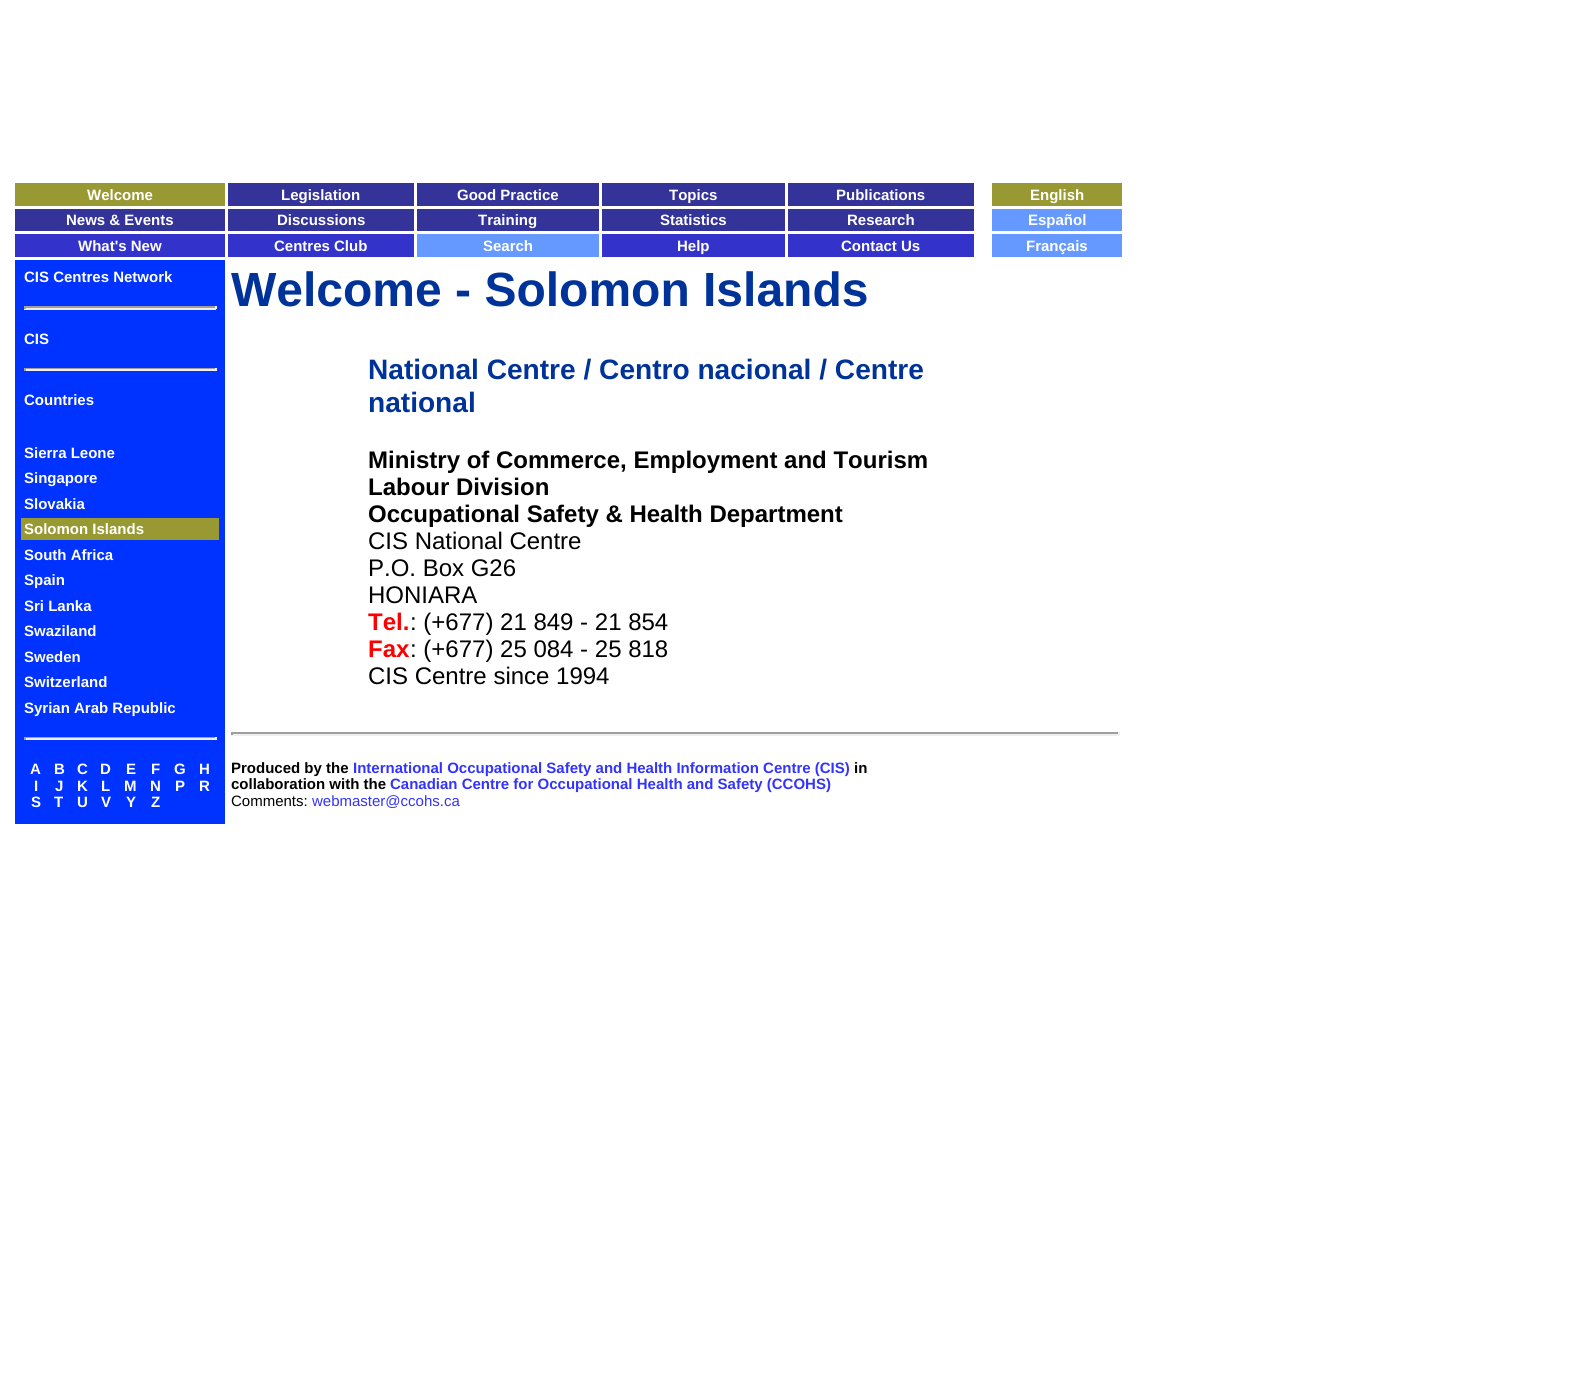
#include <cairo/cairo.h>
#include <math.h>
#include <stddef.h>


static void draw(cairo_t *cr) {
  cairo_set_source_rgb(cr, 1, 1, 1);
  cairo_paint(cr);
  cairo_set_source_rgb(cr, 153 / 255.0, 153 / 255.0, 51 / 255.0);
  cairo_rectangle(cr, 15, 183, 210, 23);
  cairo_fill(cr);
  cairo_set_source_rgb(cr, 51 / 255.0, 51 / 255.0, 153 / 255.0);
  cairo_rectangle(cr, 228, 183, 186, 23);
  cairo_fill(cr);
  cairo_rectangle(cr, 417, 183, 182, 23);
  cairo_fill(cr);
  cairo_rectangle(cr, 602, 183, 183, 23);
  cairo_fill(cr);
  cairo_rectangle(cr, 788, 183, 186, 23);
  cairo_fill(cr);
  cairo_set_source_rgb(cr, 153 / 255.0, 153 / 255.0, 51 / 255.0);
  cairo_rectangle(cr, 992, 183, 130, 23);
  cairo_fill(cr);
  cairo_set_source_rgb(cr, 51 / 255.0, 51 / 255.0, 153 / 255.0);
  cairo_rectangle(cr, 15, 209, 210, 22);
  cairo_fill(cr);
  cairo_rectangle(cr, 228, 209, 186, 22);
  cairo_fill(cr);
  cairo_rectangle(cr, 417, 209, 182, 22);
  cairo_fill(cr);
  cairo_rectangle(cr, 602, 209, 183, 22);
  cairo_fill(cr);
  cairo_rectangle(cr, 788, 209, 186, 22);
  cairo_fill(cr);
  cairo_set_source_rgb(cr, 102 / 255.0, 153 / 255.0, 1);
  cairo_rectangle(cr, 992, 209, 130, 22);
  cairo_fill(cr);
  cairo_set_source_rgb(cr, 51 / 255.0, 51 / 255.0, 204 / 255.0);
  cairo_rectangle(cr, 15, 234, 210, 23);
  cairo_fill(cr);
  cairo_rectangle(cr, 228, 234, 186, 23);
  cairo_fill(cr);
  cairo_set_source_rgb(cr, 102 / 255.0, 153 / 255.0, 1);
  cairo_rectangle(cr, 417, 234, 182, 23);
  cairo_fill(cr);
  cairo_set_source_rgb(cr, 51 / 255.0, 51 / 255.0, 204 / 255.0);
  cairo_rectangle(cr, 602, 234, 183, 23);
  cairo_fill(cr);
  cairo_rectangle(cr, 788, 234, 186, 23);
  cairo_fill(cr);
  cairo_set_source_rgb(cr, 102 / 255.0, 153 / 255.0, 1);
  cairo_rectangle(cr, 992, 234, 130, 23);
  cairo_fill(cr);
  cairo_set_source_rgb(cr, 0, 51 / 255.0, 1);
  cairo_rectangle(cr, 15, 260, 210, 564);
  cairo_fill(cr);
  cairo_set_source_rgb(cr, 159 / 255.0, 159 / 255.0, 159 / 255.0);
  cairo_rectangle(cr, 24, 306, 192, 2);
  cairo_fill(cr);
  cairo_set_source_rgb(cr, 238 / 255.0, 238 / 255.0, 238 / 255.0);
  cairo_rectangle(cr, 215, 306, 2, 3);
  cairo_fill(cr);
  cairo_rectangle(cr, 24, 308, 192, 2);
  cairo_fill(cr);
  cairo_set_source_rgb(cr, 159 / 255.0, 159 / 255.0, 159 / 255.0);
  cairo_rectangle(cr, 24, 306, 2, 3);
  cairo_fill(cr);
  cairo_rectangle(cr, 24, 368, 192, 1);
  cairo_fill(cr);
  cairo_set_source_rgb(cr, 238 / 255.0, 238 / 255.0, 238 / 255.0);
  cairo_rectangle(cr, 215, 368, 2, 3);
  cairo_fill(cr);
  cairo_rectangle(cr, 24, 369, 192, 2);
  cairo_fill(cr);
  cairo_set_source_rgb(cr, 159 / 255.0, 159 / 255.0, 159 / 255.0);
  cairo_rectangle(cr, 24, 368, 2, 3);
  cairo_fill(cr);
  cairo_set_source_rgb(cr, 153 / 255.0, 153 / 255.0, 51 / 255.0);
  cairo_rectangle(cr, 21, 518, 198, 22);
  cairo_fill(cr);
  cairo_set_source_rgb(cr, 159 / 255.0, 159 / 255.0, 159 / 255.0);
  cairo_rectangle(cr, 24, 737, 192, 1);
  cairo_fill(cr);
  cairo_set_source_rgb(cr, 238 / 255.0, 238 / 255.0, 238 / 255.0);
  cairo_rectangle(cr, 215, 737, 2, 3);
  cairo_fill(cr);
  cairo_rectangle(cr, 24, 738, 192, 2);
  cairo_fill(cr);
  cairo_set_source_rgb(cr, 159 / 255.0, 159 / 255.0, 159 / 255.0);
  cairo_rectangle(cr, 24, 737, 2, 3);
  cairo_fill(cr);
  cairo_rectangle(cr, 231, 732, 888, 2);
  cairo_fill(cr);
  cairo_set_source_rgb(cr, 238 / 255.0, 238 / 255.0, 238 / 255.0);
  cairo_rectangle(cr, 1118, 732, 2, 3);
  cairo_fill(cr);
  cairo_rectangle(cr, 231, 734, 888, 2);
  cairo_fill(cr);
  cairo_set_source_rgb(cr, 159 / 255.0, 159 / 255.0, 159 / 255.0);
  cairo_rectangle(cr, 231, 732, 2, 3);
  cairo_fill(cr);
  cairo_select_font_face(cr, "Liberation Sans", CAIRO_FONT_SLANT_NORMAL, CAIRO_FONT_WEIGHT_BOLD);
  cairo_set_font_size(cr, 15);
  cairo_set_source_rgb(cr, 1, 1, 1);
  cairo_move_to(cr, 87, 200);
  cairo_show_text(cr, "Welcome");
  cairo_move_to(cr, 281, 200);
  cairo_show_text(cr, "Legislation");
  cairo_move_to(cr, 457, 200);
  cairo_show_text(cr, "Good Practice");
  cairo_move_to(cr, 669, 200);
  cairo_show_text(cr, "Topics");
  cairo_move_to(cr, 836, 200);
  cairo_show_text(cr, "Publications");
  cairo_move_to(cr, 1030, 200);
  cairo_show_text(cr, "English");
  cairo_move_to(cr, 66, 225);
  cairo_show_text(cr, "News & Events");
  cairo_move_to(cr, 277, 225);
  cairo_show_text(cr, "Discussions");
  cairo_move_to(cr, 478, 225);
  cairo_show_text(cr, "Training");
  cairo_move_to(cr, 660, 225);
  cairo_show_text(cr, "Statistics");
  cairo_move_to(cr, 847, 225);
  cairo_show_text(cr, "Research");
  cairo_move_to(cr, 1028, 225);
  cairo_show_text(cr, "Español");
  cairo_move_to(cr, 78, 251);
  cairo_show_text(cr, "What's New");
  cairo_move_to(cr, 274, 251);
  cairo_show_text(cr, "Centres Club");
  cairo_move_to(cr, 483, 251);
  cairo_show_text(cr, "Search");
  cairo_move_to(cr, 677, 251);
  cairo_show_text(cr, "Help");
  cairo_move_to(cr, 841, 251);
  cairo_show_text(cr, "Contact Us");
  cairo_move_to(cr, 1026, 251);
  cairo_show_text(cr, "Français");
  cairo_move_to(cr, 24, 282);
  cairo_show_text(cr, "CIS Centres Network");
  cairo_move_to(cr, 24, 344);
  cairo_show_text(cr, "CIS");
  cairo_move_to(cr, 24, 405);
  cairo_show_text(cr, "Countries");
  cairo_move_to(cr, 24, 458);
  cairo_show_text(cr, "Sierra Leone");
  cairo_move_to(cr, 24, 483);
  cairo_show_text(cr, "Singapore");
  cairo_move_to(cr, 24, 509);
  cairo_show_text(cr, "Slovakia");
  cairo_move_to(cr, 24, 534);
  cairo_show_text(cr, "Solomon Islands");
  cairo_move_to(cr, 24, 560);
  cairo_show_text(cr, "South Africa");
  cairo_move_to(cr, 24, 585);
  cairo_show_text(cr, "Spain");
  cairo_move_to(cr, 24, 611);
  cairo_show_text(cr, "Sri Lanka");
  cairo_move_to(cr, 24, 636);
  cairo_show_text(cr, "Swaziland");
  cairo_move_to(cr, 24, 662);
  cairo_show_text(cr, "Sweden");
  cairo_move_to(cr, 24, 687);
  cairo_show_text(cr, "Switzerland");
  cairo_move_to(cr, 24, 713);
  cairo_show_text(cr, "Syrian Arab Republic");
  cairo_move_to(cr, 30, 774);
  cairo_show_text(cr, "A");
  cairo_move_to(cr, 54, 774);
  cairo_show_text(cr, "B");
  cairo_move_to(cr, 77, 774);
  cairo_show_text(cr, "C");
  cairo_move_to(cr, 100, 774);
  cairo_show_text(cr, "D");
  cairo_move_to(cr, 126, 774);
  cairo_show_text(cr, "E");
  cairo_move_to(cr, 151, 774);
  cairo_show_text(cr, "F");
  cairo_move_to(cr, 174, 774);
  cairo_show_text(cr, "G");
  cairo_move_to(cr, 199, 774);
  cairo_show_text(cr, "H");
  cairo_move_to(cr, 34, 791);
  cairo_show_text(cr, "I");
  cairo_move_to(cr, 55, 791);
  cairo_show_text(cr, "J");
  cairo_move_to(cr, 77, 791);
  cairo_show_text(cr, "K");
  cairo_move_to(cr, 101, 791);
  cairo_show_text(cr, "L");
  cairo_move_to(cr, 124, 791);
  cairo_show_text(cr, "M");
  cairo_move_to(cr, 150, 791);
  cairo_show_text(cr, "N");
  cairo_move_to(cr, 175, 791);
  cairo_show_text(cr, "P");
  cairo_move_to(cr, 199, 791);
  cairo_show_text(cr, "R");
  cairo_move_to(cr, 31, 807);
  cairo_show_text(cr, "S");
  cairo_move_to(cr, 54, 807);
  cairo_show_text(cr, "T");
  cairo_move_to(cr, 77, 807);
  cairo_show_text(cr, "U");
  cairo_move_to(cr, 101, 807);
  cairo_show_text(cr, "V");
  cairo_move_to(cr, 126, 807);
  cairo_show_text(cr, "Y");
  cairo_move_to(cr, 151, 807);
  cairo_show_text(cr, "Z");
  cairo_set_font_size(cr, 48);
  cairo_set_source_rgb(cr, 0, 51 / 255.0, 153 / 255.0);
  cairo_move_to(cr, 231, 306);
  cairo_show_text(cr, "Welcome - Solomon Islands");
  cairo_set_font_size(cr, 28.1);
  cairo_move_to(cr, 368, 379);
  cairo_show_text(cr, "National Centre / Centro nacional / Centre");
  cairo_move_to(cr, 368, 412);
  cairo_show_text(cr, "national");
  cairo_set_font_size(cr, 24);
  cairo_set_source_rgb(cr, 0, 0, 0);
  cairo_move_to(cr, 368, 468);
  cairo_show_text(cr, "Ministry of Commerce, Employment and Tourism");
  cairo_move_to(cr, 368, 495);
  cairo_show_text(cr, "Labour Division");
  cairo_move_to(cr, 368, 522);
  cairo_show_text(cr, "Occupational Safety & Health Department");
  cairo_select_font_face(cr, "Liberation Sans", CAIRO_FONT_SLANT_NORMAL, CAIRO_FONT_WEIGHT_NORMAL);
  cairo_move_to(cr, 368, 549);
  cairo_show_text(cr, "CIS National Centre");
  cairo_move_to(cr, 368, 576);
  cairo_show_text(cr, "P.O. Box G26");
  cairo_move_to(cr, 368, 603);
  cairo_show_text(cr, "HONIARA");
  cairo_select_font_face(cr, "Liberation Sans", CAIRO_FONT_SLANT_NORMAL, CAIRO_FONT_WEIGHT_BOLD);
  cairo_set_source_rgb(cr, 1, 0, 0);
  cairo_move_to(cr, 368, 630);
  cairo_show_text(cr, "Tel.");
  cairo_select_font_face(cr, "Liberation Sans", CAIRO_FONT_SLANT_NORMAL, CAIRO_FONT_WEIGHT_NORMAL);
  cairo_set_source_rgb(cr, 0, 0, 0);
  cairo_move_to(cr, 410, 630);
  cairo_show_text(cr, ": (+677) 21 849 - 21 854");
  cairo_select_font_face(cr, "Liberation Sans", CAIRO_FONT_SLANT_NORMAL, CAIRO_FONT_WEIGHT_BOLD);
  cairo_set_source_rgb(cr, 1, 0, 0);
  cairo_move_to(cr, 368, 657);
  cairo_show_text(cr, "Fax");
  cairo_select_font_face(cr, "Liberation Sans", CAIRO_FONT_SLANT_NORMAL, CAIRO_FONT_WEIGHT_NORMAL);
  cairo_set_source_rgb(cr, 0, 0, 0);
  cairo_move_to(cr, 410, 657);
  cairo_show_text(cr, ": (+677) 25 084 - 25 818");
  cairo_move_to(cr, 368, 684);
  cairo_show_text(cr, "CIS Centre since 1994");
  cairo_select_font_face(cr, "Liberation Sans", CAIRO_FONT_SLANT_NORMAL, CAIRO_FONT_WEIGHT_BOLD);
  cairo_set_font_size(cr, 15);
  cairo_move_to(cr, 231, 773);
  cairo_show_text(cr, "Produced by the");
  cairo_set_source_rgb(cr, 51 / 255.0, 51 / 255.0, 1);
  cairo_move_to(cr, 353, 773);
  cairo_show_text(cr, "International Occupational Safety and Health Information Centre (CIS)");
  cairo_set_source_rgb(cr, 0, 0, 0);
  cairo_move_to(cr, 854, 773);
  cairo_show_text(cr, "in");
  cairo_move_to(cr, 231, 789);
  cairo_show_text(cr, "collaboration with the");
  cairo_set_source_rgb(cr, 51 / 255.0, 51 / 255.0, 1);
  cairo_move_to(cr, 390, 789);
  cairo_show_text(cr, "Canadian Centre for Occupational Health and Safety (CCOHS)");
  cairo_select_font_face(cr, "Liberation Sans", CAIRO_FONT_SLANT_NORMAL, CAIRO_FONT_WEIGHT_NORMAL);
  cairo_set_source_rgb(cr, 0, 0, 0);
  cairo_move_to(cr, 231, 806);
  cairo_show_text(cr, "Comments:");
  cairo_set_source_rgb(cr, 51 / 255.0, 51 / 255.0, 1);
  cairo_move_to(cr, 312, 806);
  cairo_show_text(cr, "webmaster@ccohs.ca");
}

int main(void) {
  cairo_surface_t *surface = cairo_image_surface_create(CAIRO_FORMAT_RGB24, 1595, 1400);
  cairo_t *cr = cairo_create(surface);
  cairo_font_options_t *options = cairo_font_options_create();
  cairo_font_options_set_hint_metrics(options, CAIRO_HINT_METRICS_OFF);
  cairo_font_options_set_hint_style(options, CAIRO_HINT_STYLE_NONE);
  cairo_set_font_options(cr, options);
  cairo_set_miter_limit(cr, 4);
  draw(cr);
  cairo_surface_write_to_png(surface, "out.png");
  cairo_font_options_destroy(options);
  cairo_destroy(cr);
  cairo_surface_destroy(surface);
  return 0;
}
